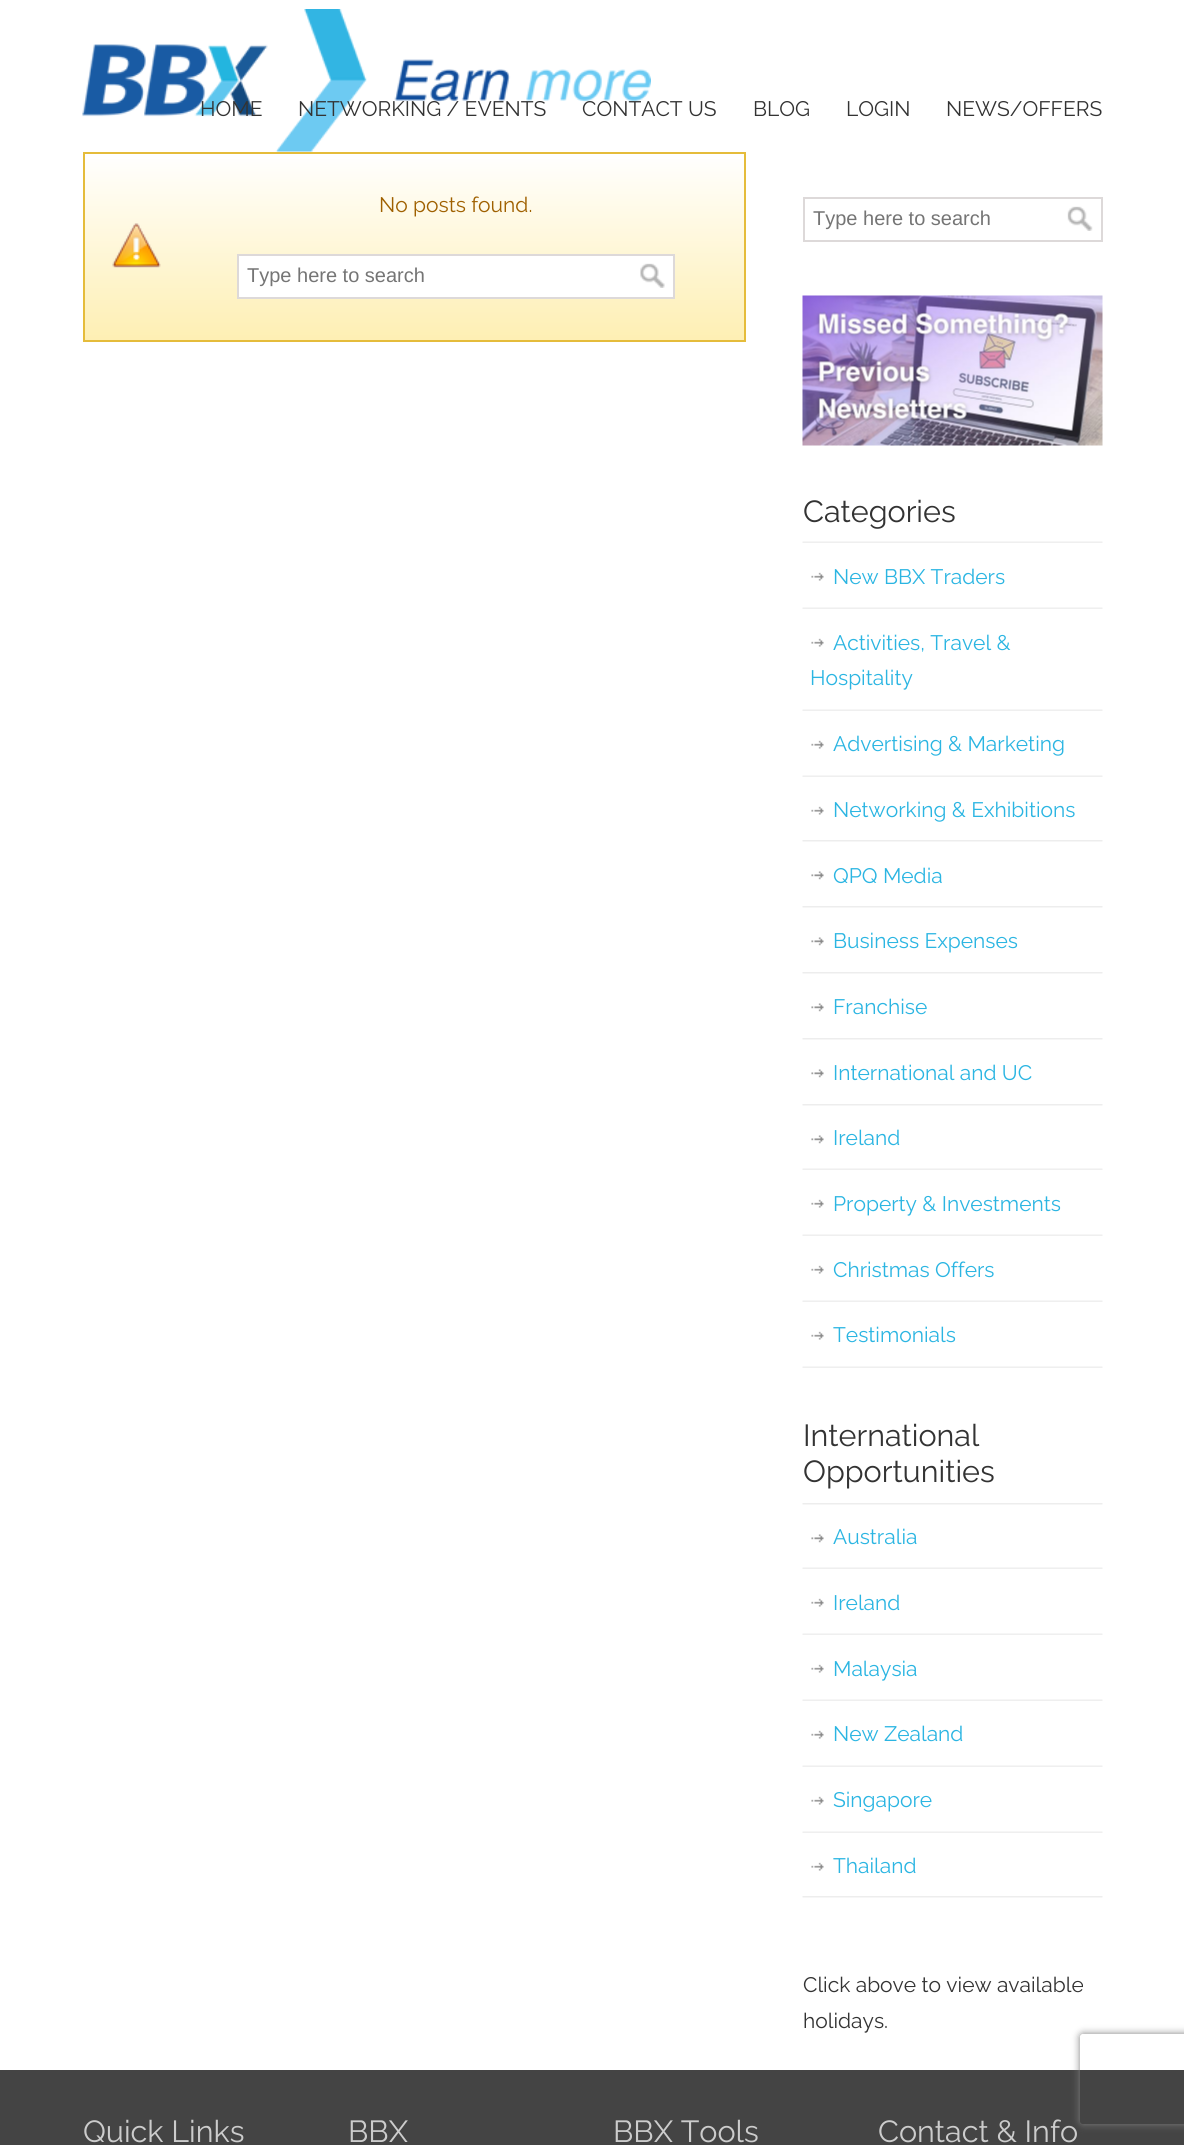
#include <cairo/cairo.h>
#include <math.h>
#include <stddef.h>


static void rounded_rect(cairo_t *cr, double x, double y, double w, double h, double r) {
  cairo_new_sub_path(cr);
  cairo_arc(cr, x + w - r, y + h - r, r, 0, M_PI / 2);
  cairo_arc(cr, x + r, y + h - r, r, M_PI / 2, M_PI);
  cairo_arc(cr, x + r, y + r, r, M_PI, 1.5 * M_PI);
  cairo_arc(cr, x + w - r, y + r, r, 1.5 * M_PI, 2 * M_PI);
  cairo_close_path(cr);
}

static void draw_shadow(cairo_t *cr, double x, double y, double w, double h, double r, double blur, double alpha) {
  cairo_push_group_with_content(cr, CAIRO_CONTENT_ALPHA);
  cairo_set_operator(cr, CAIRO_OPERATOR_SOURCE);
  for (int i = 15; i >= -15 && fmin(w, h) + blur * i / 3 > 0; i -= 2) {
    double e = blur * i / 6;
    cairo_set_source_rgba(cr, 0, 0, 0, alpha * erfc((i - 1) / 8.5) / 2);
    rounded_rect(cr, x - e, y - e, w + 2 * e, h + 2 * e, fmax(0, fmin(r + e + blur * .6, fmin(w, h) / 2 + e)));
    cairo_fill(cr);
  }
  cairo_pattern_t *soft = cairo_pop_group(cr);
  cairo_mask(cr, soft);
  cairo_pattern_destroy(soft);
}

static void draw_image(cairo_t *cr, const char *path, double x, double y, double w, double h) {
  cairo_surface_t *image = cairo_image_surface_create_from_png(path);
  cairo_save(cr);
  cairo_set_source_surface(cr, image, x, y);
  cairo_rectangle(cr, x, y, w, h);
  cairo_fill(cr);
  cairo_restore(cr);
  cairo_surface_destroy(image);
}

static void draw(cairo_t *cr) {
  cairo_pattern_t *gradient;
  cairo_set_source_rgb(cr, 1, 1, 1);
  cairo_paint(cr);
  draw_image(cr, "images/1.png", 82, 9, 569, 143);
  gradient = cairo_pattern_create_linear(414, 153, 414, 341);
  cairo_pattern_add_color_stop_rgba(gradient, 0, 1, 1, 1, 1);
  cairo_pattern_add_color_stop_rgba(gradient, 1, 254 / 255.0, 239 / 255.0, 179 / 255.0, 1);
  cairo_set_source(cr, gradient);
  cairo_pattern_destroy(gradient);
  cairo_rectangle(cr, 85, 159, 659, 181);
  cairo_fill(cr);
  cairo_rectangle(cr, 84, 153, 661, 188);
  cairo_set_source_rgb(cr, 229 / 255.0, 188 / 255.0, 59 / 255.0);
  cairo_stroke(cr);
  draw_image(cr, "images/2.png", 112, 223, 49, 45);
  cairo_set_source_rgb(cr, 1, 1, 1);
  cairo_rectangle(cr, 238, 255, 436, 43);
  cairo_fill_preserve(cr);
  cairo_set_source_rgb(cr, 221 / 255.0, 217 / 255.0, 217 / 255.0);
  cairo_stroke(cr);
  draw_image(cr, "images/3.png", 640, 263, 25, 25);
  cairo_rectangle(cr, 804, 198, 298, 43);
  cairo_stroke(cr);
  draw_image(cr, "images/4.png", 1067, 206, 26, 25);
  draw_image(cr, "images/5.png", 802, 295, 301, 151);
  draw_image(cr, "images/6.png", 802, 541, 301, 2);
  draw_image(cr, "images/6.png", 802, 607, 301, 2);
  draw_image(cr, "images/7.png", 811, 572, 13, 9);
  draw_image(cr, "images/6.png", 802, 709, 301, 2);
  draw_image(cr, "images/7.png", 811, 638, 13, 9);
  draw_image(cr, "images/6.png", 802, 775, 301, 2);
  draw_image(cr, "images/7.png", 811, 740, 13, 9);
  draw_image(cr, "images/8.png", 802, 840, 301, 2);
  draw_image(cr, "images/7.png", 811, 806, 13, 9);
  draw_image(cr, "images/8.png", 802, 906, 301, 2);
  draw_image(cr, "images/9.png", 811, 871, 13, 9);
  draw_image(cr, "images/8.png", 802, 972, 301, 2);
  draw_image(cr, "images/9.png", 811, 937, 13, 9);
  draw_image(cr, "images/8.png", 802, 1038, 301, 2);
  draw_image(cr, "images/9.png", 811, 1003, 13, 9);
  draw_image(cr, "images/8.png", 802, 1104, 301, 2);
  draw_image(cr, "images/9.png", 811, 1069, 13, 9);
  draw_image(cr, "images/6.png", 802, 1168, 301, 2);
  draw_image(cr, "images/9.png", 811, 1135, 13, 9);
  draw_image(cr, "images/6.png", 802, 1234, 301, 2);
  draw_image(cr, "images/7.png", 811, 1199, 13, 9);
  draw_image(cr, "images/6.png", 802, 1300, 301, 2);
  draw_image(cr, "images/7.png", 811, 1265, 13, 9);
  draw_image(cr, "images/6.png", 802, 1366, 301, 2);
  draw_image(cr, "images/7.png", 811, 1331, 13, 9);
  draw_image(cr, "images/8.png", 802, 1503, 301, 2);
  draw_image(cr, "images/6.png", 802, 1567, 301, 2);
  draw_image(cr, "images/9.png", 811, 1534, 13, 9);
  draw_image(cr, "images/6.png", 802, 1633, 301, 2);
  draw_image(cr, "images/7.png", 811, 1598, 13, 9);
  draw_image(cr, "images/6.png", 802, 1699, 301, 2);
  draw_image(cr, "images/7.png", 811, 1664, 13, 9);
  draw_image(cr, "images/6.png", 802, 1765, 301, 2);
  draw_image(cr, "images/7.png", 811, 1730, 13, 9);
  draw_image(cr, "images/6.png", 802, 1831, 301, 2);
  draw_image(cr, "images/7.png", 811, 1796, 13, 9);
  draw_image(cr, "images/8.png", 802, 1896, 301, 2);
  draw_image(cr, "images/7.png", 811, 1862, 13, 9);
  cairo_set_source_rgb(cr, 68 / 255.0, 68 / 255.0, 68 / 255.0);
  cairo_rectangle(cr, 0, 2070, 1184, 75);
  cairo_fill(cr);
  cairo_save(cr);
  cairo_set_fill_rule(cr, CAIRO_FILL_RULE_EVEN_ODD);
  cairo_new_path(cr);
  cairo_move_to(cr, 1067, 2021);
  cairo_line_to(cr, 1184, 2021);
  cairo_line_to(cr, 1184, 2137);
  cairo_line_to(cr, 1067, 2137);
  cairo_close_path(cr);
  cairo_move_to(cr, 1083, 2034);
  cairo_line_to(cr, 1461, 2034);
  cairo_curve_to(cr, 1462.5, 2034, 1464, 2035.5, 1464, 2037);
  cairo_line_to(cr, 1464, 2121);
  cairo_curve_to(cr, 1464, 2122.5, 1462.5, 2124, 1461, 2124);
  cairo_line_to(cr, 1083, 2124);
  cairo_curve_to(cr, 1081.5, 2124, 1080, 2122.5, 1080, 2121);
  cairo_line_to(cr, 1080, 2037);
  cairo_curve_to(cr, 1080, 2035.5, 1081.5, 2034, 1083, 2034);
  cairo_close_path(cr);
  cairo_clip(cr);
  cairo_set_source_rgb(cr, 128 / 255.0, 128 / 255.0, 128 / 255.0);
  draw_shadow(cr, 1080, 2034, 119, 90, 3, 4, 1);
  cairo_restore(cr);
  cairo_select_font_face(cr, "Raleway", CAIRO_FONT_SLANT_NORMAL, CAIRO_FONT_WEIGHT_NORMAL);
  cairo_set_font_size(cr, 21);
  cairo_set_source_rgb(cr, 51 / 255.0, 51 / 255.0, 51 / 255.0);
  cairo_move_to(cr, 200, 116);
  cairo_show_text(cr, "HOME");
  cairo_move_to(cr, 298, 116);
  cairo_show_text(cr, "NETWORKING / EVENTS");
  cairo_move_to(cr, 582, 116);
  cairo_show_text(cr, "CONTACT US");
  cairo_move_to(cr, 753, 116);
  cairo_show_text(cr, "BLOG");
  cairo_move_to(cr, 846, 116);
  cairo_show_text(cr, "LOGIN");
  cairo_move_to(cr, 946, 116);
  cairo_show_text(cr, "NEWS/OFFERS");
  cairo_set_source_rgb(cr, 159 / 255.0, 96 / 255.0, 0);
  cairo_move_to(cr, 379, 212);
  cairo_show_text(cr, "No posts found.");
  cairo_select_font_face(cr, "Liberation Sans", CAIRO_FONT_SLANT_NORMAL, CAIRO_FONT_WEIGHT_NORMAL);
  cairo_set_font_size(cr, 20);
  cairo_set_source_rgb(cr, 117 / 255.0, 117 / 255.0, 117 / 255.0);
  cairo_move_to(cr, 247, 282);
  cairo_show_text(cr, "Type here to search");
  cairo_move_to(cr, 813, 225);
  cairo_show_text(cr, "Type here to search");
  cairo_select_font_face(cr, "Raleway", CAIRO_FONT_SLANT_NORMAL, CAIRO_FONT_WEIGHT_NORMAL);
  cairo_set_font_size(cr, 30.5);
  cairo_set_source_rgb(cr, 51 / 255.0, 51 / 255.0, 51 / 255.0);
  cairo_move_to(cr, 803, 522);
  cairo_show_text(cr, "Categories");
  cairo_set_font_size(cr, 21);
  cairo_set_source_rgb(cr, 43 / 255.0, 181 / 255.0, 226 / 255.0);
  cairo_move_to(cr, 833, 584);
  cairo_show_text(cr, "New BBX Traders");
  cairo_move_to(cr, 833, 650);
  cairo_show_text(cr, "Activities, Travel &");
  cairo_move_to(cr, 810, 685);
  cairo_show_text(cr, "Hospitality");
  cairo_move_to(cr, 833, 751);
  cairo_show_text(cr, "Advertising & Marketing");
  cairo_move_to(cr, 833, 817);
  cairo_show_text(cr, "Networking & Exhibitions");
  cairo_move_to(cr, 833, 883);
  cairo_show_text(cr, "QPQ Media");
  cairo_move_to(cr, 833, 948);
  cairo_show_text(cr, "Business Expenses");
  cairo_move_to(cr, 833, 1014);
  cairo_show_text(cr, "Franchise");
  cairo_move_to(cr, 833, 1080);
  cairo_show_text(cr, "International and UC");
  cairo_move_to(cr, 833, 1145);
  cairo_show_text(cr, "Ireland");
  cairo_move_to(cr, 833, 1211);
  cairo_show_text(cr, "Property & Investments");
  cairo_move_to(cr, 833, 1277);
  cairo_show_text(cr, "Christmas Offers");
  cairo_move_to(cr, 833, 1342);
  cairo_show_text(cr, "Testimonials");
  cairo_set_font_size(cr, 30.5);
  cairo_set_source_rgb(cr, 51 / 255.0, 51 / 255.0, 51 / 255.0);
  cairo_move_to(cr, 803, 1446);
  cairo_show_text(cr, "International");
  cairo_move_to(cr, 803, 1482);
  cairo_show_text(cr, "Opportunities");
  cairo_set_font_size(cr, 21);
  cairo_set_source_rgb(cr, 43 / 255.0, 181 / 255.0, 226 / 255.0);
  cairo_move_to(cr, 833, 1544);
  cairo_show_text(cr, "Australia");
  cairo_move_to(cr, 833, 1610);
  cairo_show_text(cr, "Ireland");
  cairo_move_to(cr, 833, 1676);
  cairo_show_text(cr, "Malaysia");
  cairo_move_to(cr, 833, 1741);
  cairo_show_text(cr, "New Zealand");
  cairo_move_to(cr, 833, 1807);
  cairo_show_text(cr, "Singapore");
  cairo_move_to(cr, 833, 1873);
  cairo_show_text(cr, "Thailand");
  cairo_set_source_rgb(cr, 51 / 255.0, 51 / 255.0, 51 / 255.0);
  cairo_move_to(cr, 803, 1992);
  cairo_show_text(cr, "Click above to view available");
  cairo_move_to(cr, 803, 2028);
  cairo_show_text(cr, "holidays.");
  cairo_set_font_size(cr, 30.5);
  cairo_set_source_rgb(cr, 204 / 255.0, 204 / 255.0, 204 / 255.0);
  cairo_move_to(cr, 83, 2142);
  cairo_show_text(cr, "Quick Links");
  cairo_move_to(cr, 348, 2142);
  cairo_show_text(cr, "BBX");
  cairo_move_to(cr, 613, 2142);
  cairo_show_text(cr, "BBX Tools");
  cairo_move_to(cr, 878, 2142);
  cairo_show_text(cr, "Contact & Info");
}

int main(void) {
  cairo_surface_t *surface = cairo_image_surface_create(CAIRO_FORMAT_RGB24, 1184, 2145);
  cairo_t *cr = cairo_create(surface);
  cairo_font_options_t *options = cairo_font_options_create();
  cairo_font_options_set_hint_metrics(options, CAIRO_HINT_METRICS_OFF);
  cairo_font_options_set_hint_style(options, CAIRO_HINT_STYLE_NONE);
  cairo_set_font_options(cr, options);
  cairo_set_miter_limit(cr, 4);
  draw(cr);
  cairo_surface_write_to_png(surface, "out.png");
  cairo_font_options_destroy(options);
  cairo_destroy(cr);
  cairo_surface_destroy(surface);
  return 0;
}
